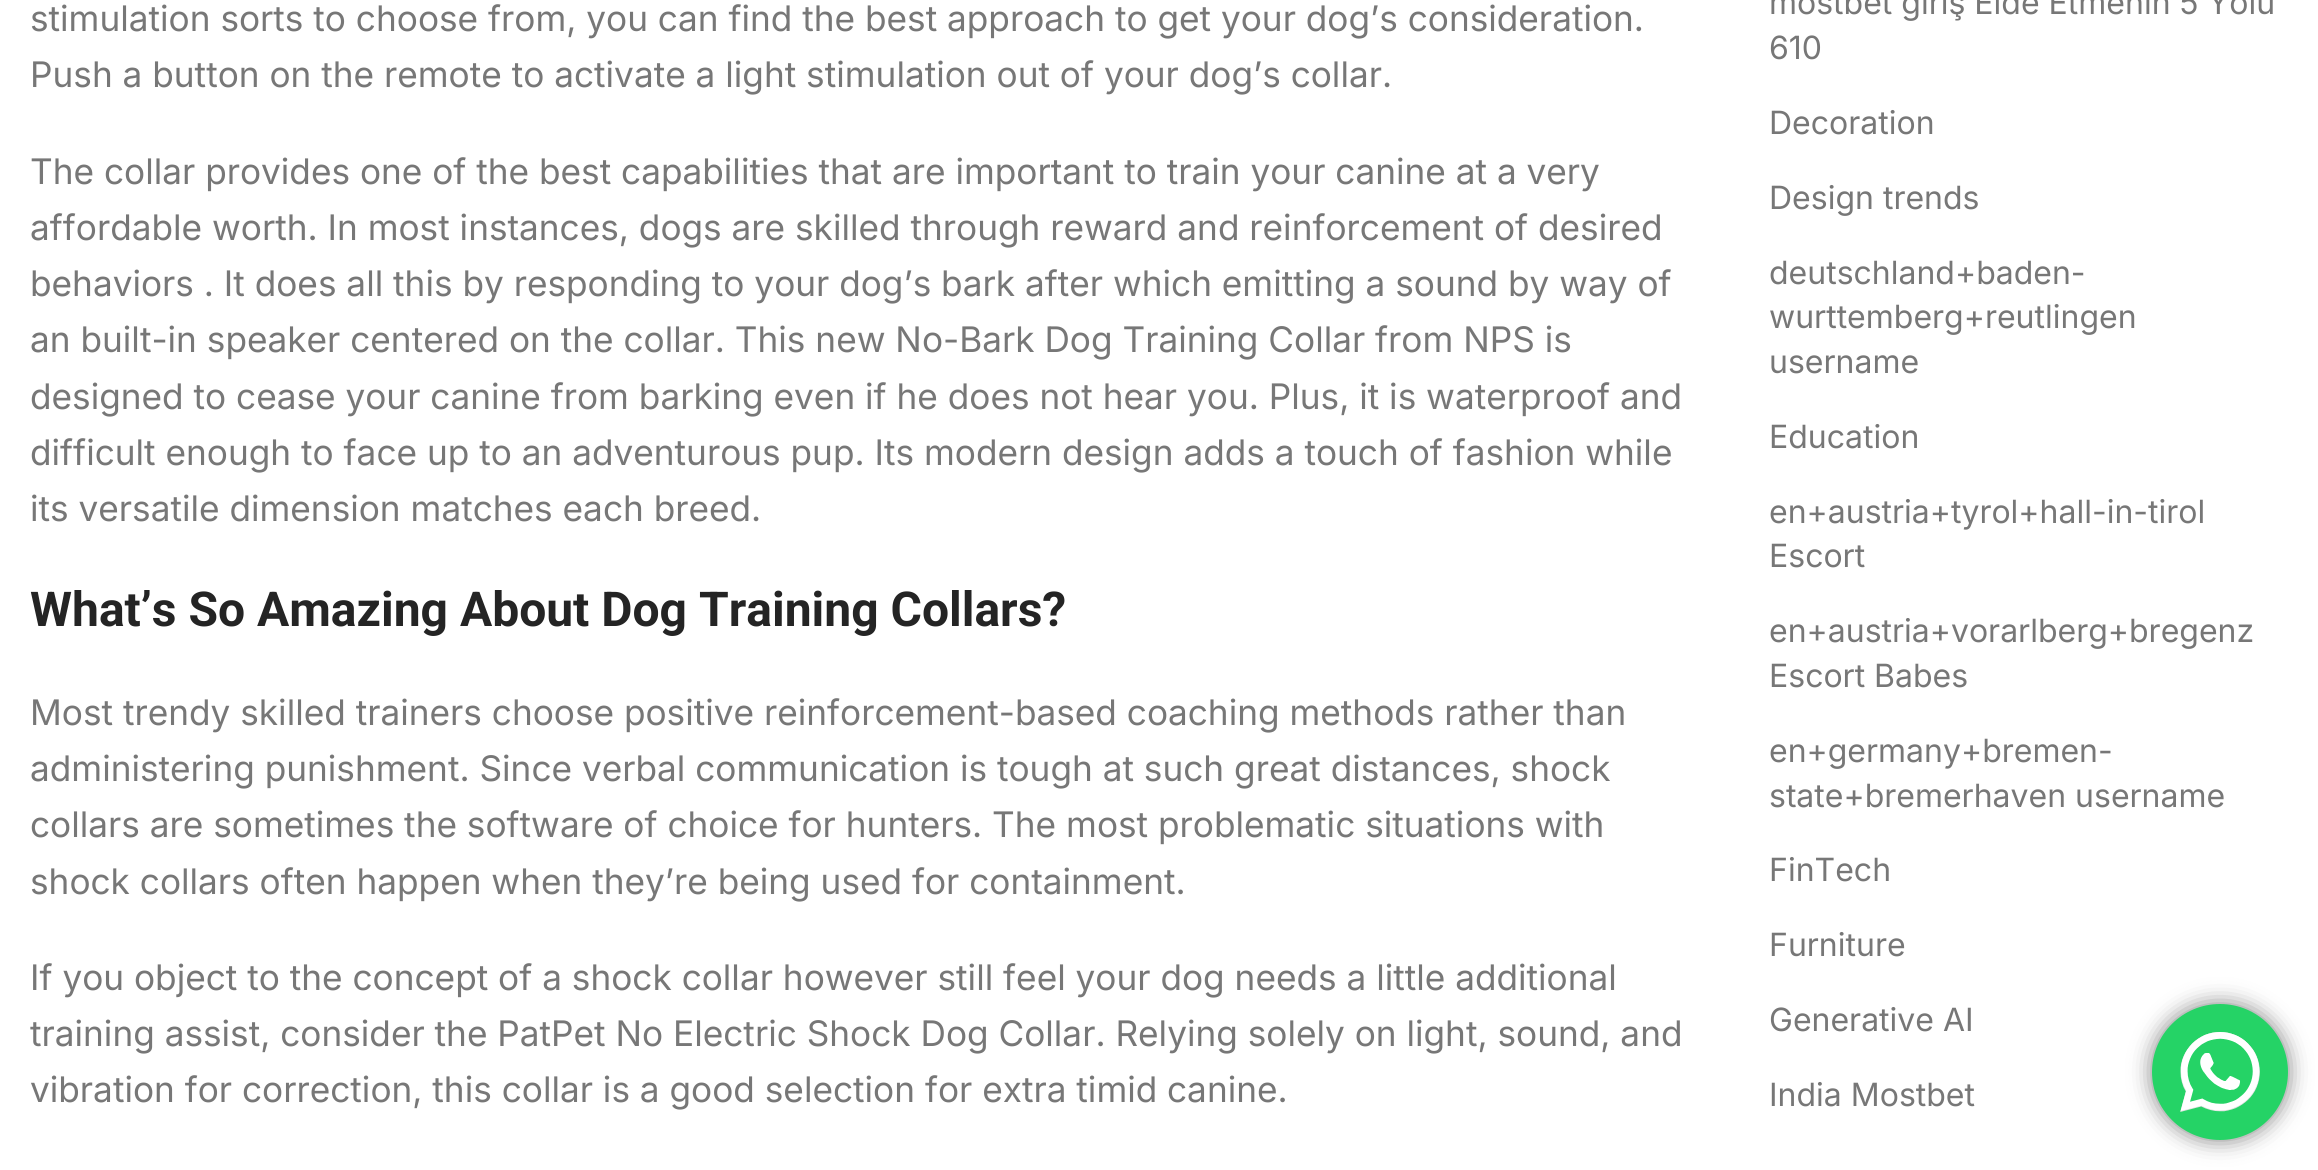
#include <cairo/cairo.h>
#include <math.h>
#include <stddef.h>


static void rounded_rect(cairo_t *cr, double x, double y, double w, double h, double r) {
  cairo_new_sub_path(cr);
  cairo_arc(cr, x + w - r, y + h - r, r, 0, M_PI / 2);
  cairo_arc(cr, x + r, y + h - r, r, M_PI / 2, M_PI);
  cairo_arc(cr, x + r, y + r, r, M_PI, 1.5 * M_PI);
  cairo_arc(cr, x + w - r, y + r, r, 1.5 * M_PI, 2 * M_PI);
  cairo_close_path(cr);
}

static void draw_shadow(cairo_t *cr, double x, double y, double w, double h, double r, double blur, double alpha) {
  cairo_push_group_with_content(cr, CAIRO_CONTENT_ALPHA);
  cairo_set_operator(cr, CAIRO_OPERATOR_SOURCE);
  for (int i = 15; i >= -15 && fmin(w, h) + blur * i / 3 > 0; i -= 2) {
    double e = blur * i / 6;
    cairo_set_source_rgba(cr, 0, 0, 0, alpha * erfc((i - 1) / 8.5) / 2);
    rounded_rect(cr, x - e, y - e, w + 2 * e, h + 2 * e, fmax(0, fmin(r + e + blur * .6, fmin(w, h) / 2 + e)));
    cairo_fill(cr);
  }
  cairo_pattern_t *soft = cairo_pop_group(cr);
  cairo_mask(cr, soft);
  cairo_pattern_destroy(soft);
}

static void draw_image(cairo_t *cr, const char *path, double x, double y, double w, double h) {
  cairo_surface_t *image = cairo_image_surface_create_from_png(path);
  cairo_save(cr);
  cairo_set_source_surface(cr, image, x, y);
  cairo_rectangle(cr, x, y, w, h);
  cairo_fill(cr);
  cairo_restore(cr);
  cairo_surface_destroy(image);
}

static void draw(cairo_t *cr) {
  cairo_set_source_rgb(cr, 1, 1, 1);
  cairo_paint(cr);
  cairo_set_source_rgb(cr, 0, 0, 0);
  draw_shadow(cr, 2152, 1004, 136, 136, 68, 11, 0.5);
  cairo_set_source_rgb(cr, 37 / 255.0, 211 / 255.0, 102 / 255.0);
  cairo_arc(cr, 2220, 1072, 68, 0, 2 * M_PI);
  cairo_fill(cr);
  draw_image(cr, "images/1.png", 2180, 1032, 80, 80);
  cairo_select_font_face(cr, "Inter", CAIRO_FONT_SLANT_NORMAL, CAIRO_FONT_WEIGHT_NORMAL);
  cairo_set_font_size(cr, 35.2);
  cairo_set_source_rgb(cr, 119 / 255.0, 119 / 255.0, 119 / 255.0);
  cairo_move_to(cr, 30, 31);
  cairo_show_text(cr, "stimulation sorts to choose from, you can find the best approach to get your dog’s consideration.");
  cairo_move_to(cr, 30, 87);
  cairo_show_text(cr, "Push a button on the remote to activate a light stimulation out of your dog’s collar.");
  cairo_move_to(cr, 30, 184);
  cairo_show_text(cr, "The collar provides one of the best capabilities that are important to train your canine at a very");
  cairo_move_to(cr, 30, 240);
  cairo_show_text(cr, "affordable worth. In most instances, dogs are skilled through reward and reinforcement of desired");
  cairo_move_to(cr, 30, 296);
  cairo_show_text(cr, "behaviors . It does all this by responding to your dog’s bark after which emitting a sound by way of");
  cairo_move_to(cr, 30, 352);
  cairo_show_text(cr, "an built-in speaker centered on the collar. This new No-Bark Dog Training Collar from NPS is");
  cairo_move_to(cr, 30, 409);
  cairo_show_text(cr, "designed to cease your canine from barking even if he does not hear you. Plus, it is waterproof and");
  cairo_move_to(cr, 30, 465);
  cairo_show_text(cr, "difficult enough to face up to an adventurous pup. Its modern design adds a touch of fashion while");
  cairo_move_to(cr, 30, 521);
  cairo_show_text(cr, "its versatile dimension matches each breed.");
  cairo_select_font_face(cr, "Roboto", CAIRO_FONT_SLANT_NORMAL, CAIRO_FONT_WEIGHT_BOLD);
  cairo_set_font_size(cr, 48);
  cairo_set_source_rgb(cr, 36 / 255.0, 36 / 255.0, 36 / 255.0);
  cairo_move_to(cr, 30, 626);
  cairo_show_text(cr, "What’s So Amazing About Dog Training Collars?");
  cairo_select_font_face(cr, "Inter", CAIRO_FONT_SLANT_NORMAL, CAIRO_FONT_WEIGHT_NORMAL);
  cairo_set_font_size(cr, 35.2);
  cairo_set_source_rgb(cr, 119 / 255.0, 119 / 255.0, 119 / 255.0);
  cairo_move_to(cr, 30, 725);
  cairo_show_text(cr, "Most trendy skilled trainers choose positive reinforcement-based coaching methods rather than");
  cairo_move_to(cr, 30, 781);
  cairo_show_text(cr, "administering punishment. Since verbal communication is tough at such great distances, shock");
  cairo_move_to(cr, 30, 837);
  cairo_show_text(cr, "collars are sometimes the software of choice for hunters. The most problematic situations with");
  cairo_move_to(cr, 30, 894);
  cairo_show_text(cr, "shock collars often happen when they’re being used for containment.");
  cairo_move_to(cr, 30, 990);
  cairo_show_text(cr, "If you object to the concept of a shock collar however still feel your dog needs a little additional");
  cairo_move_to(cr, 30, 1046);
  cairo_show_text(cr, "training assist, consider the PatPet No Electric Shock Dog Collar. Relying solely on light, sound, and");
  cairo_move_to(cr, 30, 1102);
  cairo_show_text(cr, "vibration for correction, this collar is a good selection for extra timid");
  cairo_move_to(cr, 1167, 1102);
  cairo_show_text(cr, "canine.");
  cairo_set_font_size(cr, 32);
  cairo_move_to(cr, 1769, 14);
  cairo_show_text(cr, "mostbet giriş Elde Etmenin 5 Yolu");
  cairo_move_to(cr, 1769, 59);
  cairo_show_text(cr, "610");
  cairo_move_to(cr, 1769, 134);
  cairo_show_text(cr, "Decoration");
  cairo_move_to(cr, 1769, 209);
  cairo_show_text(cr, "Design trends");
  cairo_move_to(cr, 1769, 284);
  cairo_show_text(cr, "deutschland+baden-");
  cairo_move_to(cr, 1769, 328);
  cairo_show_text(cr, "wurttemberg+reutlingen");
  cairo_move_to(cr, 1769, 373);
  cairo_show_text(cr, "username");
  cairo_move_to(cr, 1769, 448);
  cairo_show_text(cr, "Education");
  cairo_move_to(cr, 1769, 523);
  cairo_show_text(cr, "en+austria+tyrol+hall-in-tirol");
  cairo_move_to(cr, 1769, 567);
  cairo_show_text(cr, "Escort");
  cairo_move_to(cr, 1769, 642);
  cairo_show_text(cr, "en+austria+vorarlberg+bregenz");
  cairo_move_to(cr, 1769, 687);
  cairo_show_text(cr, "Escort Babes");
  cairo_move_to(cr, 1769, 762);
  cairo_show_text(cr, "en+germany+bremen-");
  cairo_move_to(cr, 1769, 807);
  cairo_show_text(cr, "state+bremerhaven username");
  cairo_move_to(cr, 1769, 881);
  cairo_show_text(cr, "FinTech");
  cairo_move_to(cr, 1769, 956);
  cairo_show_text(cr, "Furniture");
  cairo_move_to(cr, 1769, 1031);
  cairo_show_text(cr, "Generative AI");
  cairo_move_to(cr, 1769, 1106);
  cairo_show_text(cr, "India Mostbet");
}

int main(void) {
  cairo_surface_t *surface = cairo_image_surface_create(CAIRO_FORMAT_RGB24, 2318, 1170);
  cairo_t *cr = cairo_create(surface);
  cairo_font_options_t *options = cairo_font_options_create();
  cairo_font_options_set_hint_metrics(options, CAIRO_HINT_METRICS_OFF);
  cairo_font_options_set_hint_style(options, CAIRO_HINT_STYLE_NONE);
  cairo_set_font_options(cr, options);
  cairo_set_miter_limit(cr, 4);
  draw(cr);
  cairo_surface_write_to_png(surface, "out.png");
  cairo_font_options_destroy(options);
  cairo_destroy(cr);
  cairo_surface_destroy(surface);
  return 0;
}
